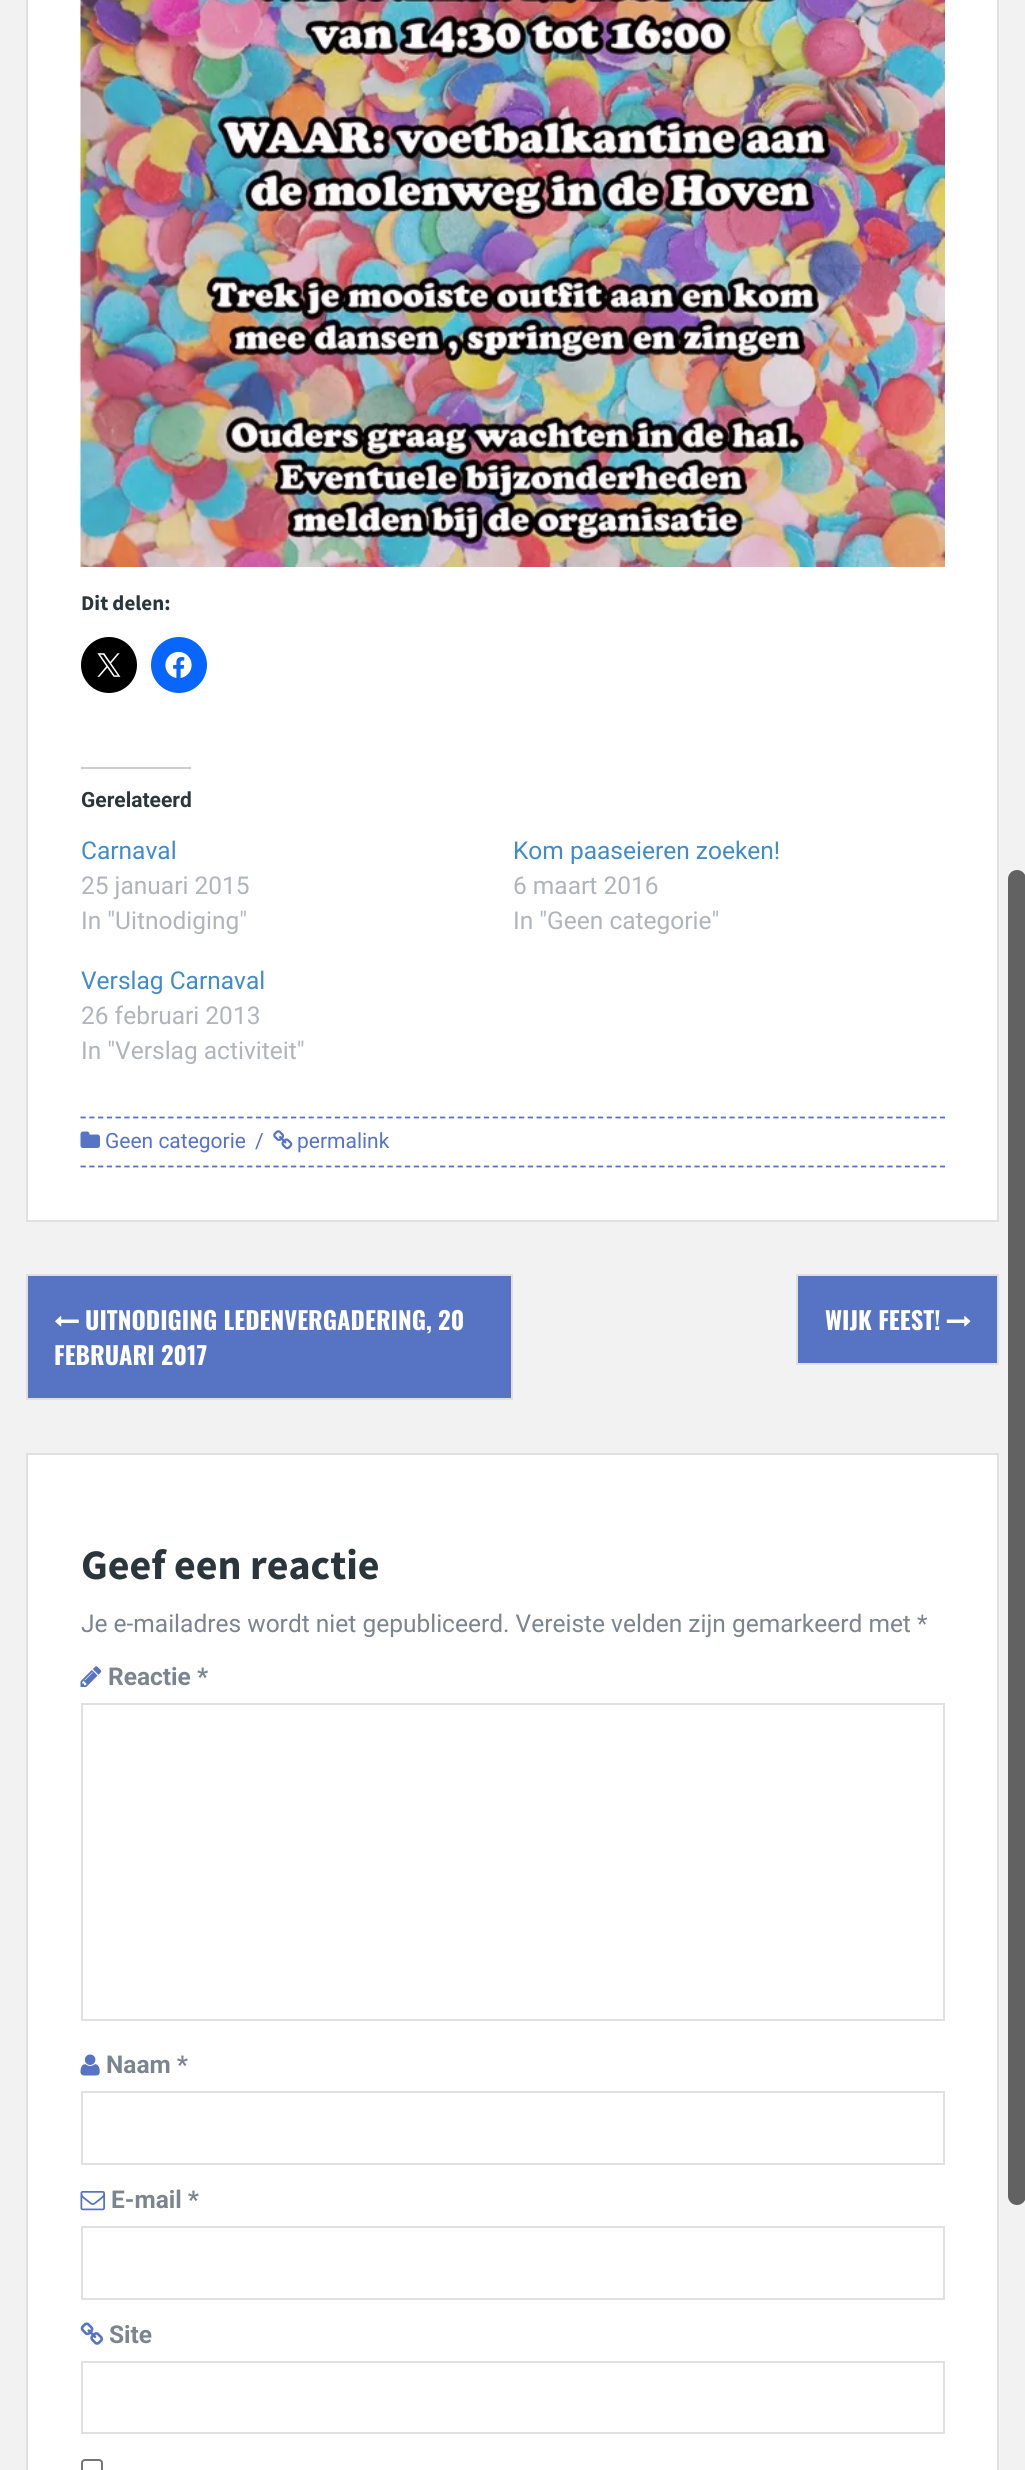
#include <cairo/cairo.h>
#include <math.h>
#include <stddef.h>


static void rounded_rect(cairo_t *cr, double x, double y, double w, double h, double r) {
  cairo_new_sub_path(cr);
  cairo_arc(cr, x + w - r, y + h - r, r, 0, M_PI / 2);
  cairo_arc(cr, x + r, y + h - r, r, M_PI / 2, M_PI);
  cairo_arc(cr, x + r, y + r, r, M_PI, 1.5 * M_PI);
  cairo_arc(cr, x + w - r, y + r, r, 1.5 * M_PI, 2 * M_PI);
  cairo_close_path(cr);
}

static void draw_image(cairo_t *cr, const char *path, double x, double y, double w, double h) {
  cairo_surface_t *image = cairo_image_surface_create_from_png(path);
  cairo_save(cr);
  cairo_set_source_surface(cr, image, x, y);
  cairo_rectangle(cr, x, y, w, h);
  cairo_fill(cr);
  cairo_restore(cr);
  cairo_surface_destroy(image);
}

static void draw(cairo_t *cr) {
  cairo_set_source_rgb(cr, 242 / 255.0, 242 / 255.0, 242 / 255.0);
  cairo_paint(cr);
  cairo_set_source_rgb(cr, 1, 1, 1);
  cairo_rectangle(cr, 27, -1, 971, 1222);
  cairo_fill_preserve(cr);
  cairo_set_source_rgb(cr, 224 / 255.0, 224 / 255.0, 224 / 255.0);
  cairo_stroke(cr);
  draw_image(cr, "images/1.png", 80, 0, 865, 567);
  cairo_set_source_rgb(cr, 0, 0, 0);
  cairo_arc(cr, 109, 665, 28, 0, 2 * M_PI);
  cairo_fill(cr);
  draw_image(cr, "images/2.png", 97, 653, 24, 24);
  cairo_set_source_rgb(cr, 8 / 255.0, 102 / 255.0, 1);
  cairo_arc(cr, 179, 665, 28, 0, 2 * M_PI);
  cairo_fill(cr);
  draw_image(cr, "images/3.png", 165, 651, 27, 27);
  cairo_set_source_rgb(cr, 204 / 255.0, 204 / 255.0, 204 / 255.0);
  cairo_rectangle(cr, 81, 767, 110, 2);
  cairo_fill(cr);
  cairo_new_path(cr);
  cairo_move_to(cr, 80.5, 1117.5);
  cairo_line_to(cr, 945, 1117.5);
  cairo_set_source_rgb(cr, 86 / 255.0, 115 / 255.0, 196 / 255.0);
  cairo_set_line_width(cr, 1.8);
  cairo_set_dash(cr, (double[]){5.25, 3.52}, 2, 0);
  cairo_stroke(cr);
  cairo_new_path(cr);
  cairo_move_to(cr, 80.5, 1166.5);
  cairo_line_to(cr, 945, 1166.5);
  cairo_stroke(cr);
  draw_image(cr, "images/4.png", 80, 1131, 20, 17);
  draw_image(cr, "images/5.png", 273, 1130, 20, 20);
  cairo_rectangle(cr, 27, 1275, 485, 124);
  cairo_fill_preserve(cr);
  cairo_set_source_rgb(cr, 224 / 255.0, 224 / 255.0, 224 / 255.0);
  cairo_set_line_width(cr, 2);
  cairo_set_dash(cr, NULL, 0, 0);
  cairo_stroke(cr);
  draw_image(cr, "images/6.png", 55, 1316, 24, 11);
  cairo_set_source_rgb(cr, 86 / 255.0, 115 / 255.0, 196 / 255.0);
  cairo_rectangle(cr, 797, 1275, 201, 89);
  cairo_fill_preserve(cr);
  cairo_set_source_rgb(cr, 224 / 255.0, 224 / 255.0, 224 / 255.0);
  cairo_stroke(cr);
  draw_image(cr, "images/7.png", 946, 1316, 25, 11);
  cairo_set_source_rgb(cr, 1, 1, 1);
  cairo_rectangle(cr, 27, 1454, 971, 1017);
  cairo_fill_preserve(cr);
  cairo_set_source_rgb(cr, 224 / 255.0, 224 / 255.0, 224 / 255.0);
  cairo_stroke(cr);
  draw_image(cr, "images/8.png", 80, 1666, 22, 21);
  cairo_rectangle(cr, 82, 1704, 862, 316);
  cairo_stroke(cr);
  draw_image(cr, "images/9.png", 80, 2054, 20, 22);
  cairo_rectangle(cr, 82, 2092, 862, 72);
  cairo_stroke(cr);
  draw_image(cr, "images/10.png", 80, 2191, 25, 20);
  cairo_rectangle(cr, 82, 2227, 862, 72);
  cairo_stroke(cr);
  draw_image(cr, "images/11.png", 80, 2322, 23, 23);
  cairo_rectangle(cr, 82, 2362, 862, 71);
  cairo_stroke(cr);
  rounded_rect(cr, 82, 2460, 20, 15, 3);
  cairo_set_source_rgb(cr, 118 / 255.0, 118 / 255.0, 118 / 255.0);
  cairo_stroke(cr);
  cairo_set_source_rgb(cr, 98 / 255.0, 98 / 255.0, 98 / 255.0);
  rounded_rect(cr, 1008, 870, 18, 1335, 9);
  cairo_fill(cr);
  cairo_select_font_face(cr, "Source Sans Pro", CAIRO_FONT_SLANT_NORMAL, CAIRO_FONT_WEIGHT_BOLD);
  cairo_set_font_size(cr, 21);
  cairo_set_source_rgb(cr, 42 / 255.0, 54 / 255.0, 59 / 255.0);
  cairo_move_to(cr, 81, 610);
  cairo_show_text(cr, "Dit delen:");
  cairo_select_font_face(cr, "Roboto", CAIRO_FONT_SLANT_NORMAL, CAIRO_FONT_WEIGHT_BOLD);
  cairo_move_to(cr, 81, 807);
  cairo_show_text(cr, "Gerelateerd");
  cairo_select_font_face(cr, "Roboto", CAIRO_FONT_SLANT_NORMAL, CAIRO_FONT_WEIGHT_NORMAL);
  cairo_set_font_size(cr, 24.5);
  cairo_set_source_rgb(cr, 66 / 255.0, 139 / 255.0, 202 / 255.0);
  cairo_move_to(cr, 81, 859);
  cairo_show_text(cr, "Carnaval");
  cairo_set_source_rgb(cr, 176 / 255.0, 181 / 255.0, 188 / 255.0);
  cairo_move_to(cr, 81, 894);
  cairo_show_text(cr, "25 januari 2015");
  cairo_move_to(cr, 81, 929);
  cairo_show_text(cr, "In \"Uitnodiging\"");
  cairo_set_source_rgb(cr, 66 / 255.0, 139 / 255.0, 202 / 255.0);
  cairo_move_to(cr, 513, 859);
  cairo_show_text(cr, "Kom paaseieren zoeken!");
  cairo_set_source_rgb(cr, 176 / 255.0, 181 / 255.0, 188 / 255.0);
  cairo_move_to(cr, 513, 894);
  cairo_show_text(cr, "6 maart 2016");
  cairo_move_to(cr, 513, 929);
  cairo_show_text(cr, "In \"Geen categorie\"");
  cairo_set_source_rgb(cr, 66 / 255.0, 139 / 255.0, 202 / 255.0);
  cairo_move_to(cr, 81, 989);
  cairo_show_text(cr, "Verslag Carnaval");
  cairo_set_source_rgb(cr, 176 / 255.0, 181 / 255.0, 188 / 255.0);
  cairo_move_to(cr, 81, 1024);
  cairo_show_text(cr, "26 februari 2013");
  cairo_move_to(cr, 81, 1059);
  cairo_show_text(cr, "In \"Verslag activiteit\"");
  cairo_set_font_size(cr, 21);
  cairo_set_source_rgb(cr, 86 / 255.0, 115 / 255.0, 196 / 255.0);
  cairo_move_to(cr, 105, 1148);
  cairo_show_text(cr, "Geen categorie");
  cairo_move_to(cr, 255, 1148);
  cairo_show_text(cr, "/");
  cairo_move_to(cr, 297, 1148);
  cairo_show_text(cr, "permalink");
  cairo_select_font_face(cr, "Oswald", CAIRO_FONT_SLANT_NORMAL, CAIRO_FONT_WEIGHT_BOLD);
  cairo_set_font_size(cr, 24.5);
  cairo_set_source_rgb(cr, 1, 1, 1);
  cairo_move_to(cr, 85, 1330);
  cairo_show_text(cr, "UITNODIGING LEDENVERGADERING, 20");
  cairo_move_to(cr, 54, 1365);
  cairo_show_text(cr, "FEBRUARI 2017");
  cairo_move_to(cr, 825, 1330);
  cairo_show_text(cr, "WIJK FEEST!");
  cairo_select_font_face(cr, "Source Sans Pro", CAIRO_FONT_SLANT_NORMAL, CAIRO_FONT_WEIGHT_BOLD);
  cairo_set_font_size(cr, 42);
  cairo_set_source_rgb(cr, 42 / 255.0, 54 / 255.0, 59 / 255.0);
  cairo_move_to(cr, 81, 1579);
  cairo_show_text(cr, "Geef een reactie");
  cairo_select_font_face(cr, "Roboto", CAIRO_FONT_SLANT_NORMAL, CAIRO_FONT_WEIGHT_NORMAL);
  cairo_set_font_size(cr, 24.5);
  cairo_set_source_rgb(cr, 123 / 255.0, 132 / 255.0, 143 / 255.0);
  cairo_move_to(cr, 81, 1632);
  cairo_show_text(cr, "Je e-mailadres wordt niet gepubliceerd. Vereiste velden zijn gemarkeerd met *");
  cairo_select_font_face(cr, "Roboto", CAIRO_FONT_SLANT_NORMAL, CAIRO_FONT_WEIGHT_BOLD);
  cairo_move_to(cr, 108, 1685);
  cairo_show_text(cr, "Reactie *");
  cairo_move_to(cr, 106, 2073);
  cairo_show_text(cr, "Naam *");
  cairo_move_to(cr, 111, 2208);
  cairo_show_text(cr, "E-mail *");
  cairo_move_to(cr, 109, 2343);
  cairo_show_text(cr, "Site");
}

int main(void) {
  cairo_surface_t *surface = cairo_image_surface_create(CAIRO_FORMAT_RGB24, 1025, 2470);
  cairo_t *cr = cairo_create(surface);
  cairo_font_options_t *options = cairo_font_options_create();
  cairo_font_options_set_hint_metrics(options, CAIRO_HINT_METRICS_OFF);
  cairo_font_options_set_hint_style(options, CAIRO_HINT_STYLE_NONE);
  cairo_set_font_options(cr, options);
  cairo_set_miter_limit(cr, 4);
  draw(cr);
  cairo_surface_write_to_png(surface, "out.png");
  cairo_font_options_destroy(options);
  cairo_destroy(cr);
  cairo_surface_destroy(surface);
  return 0;
}
